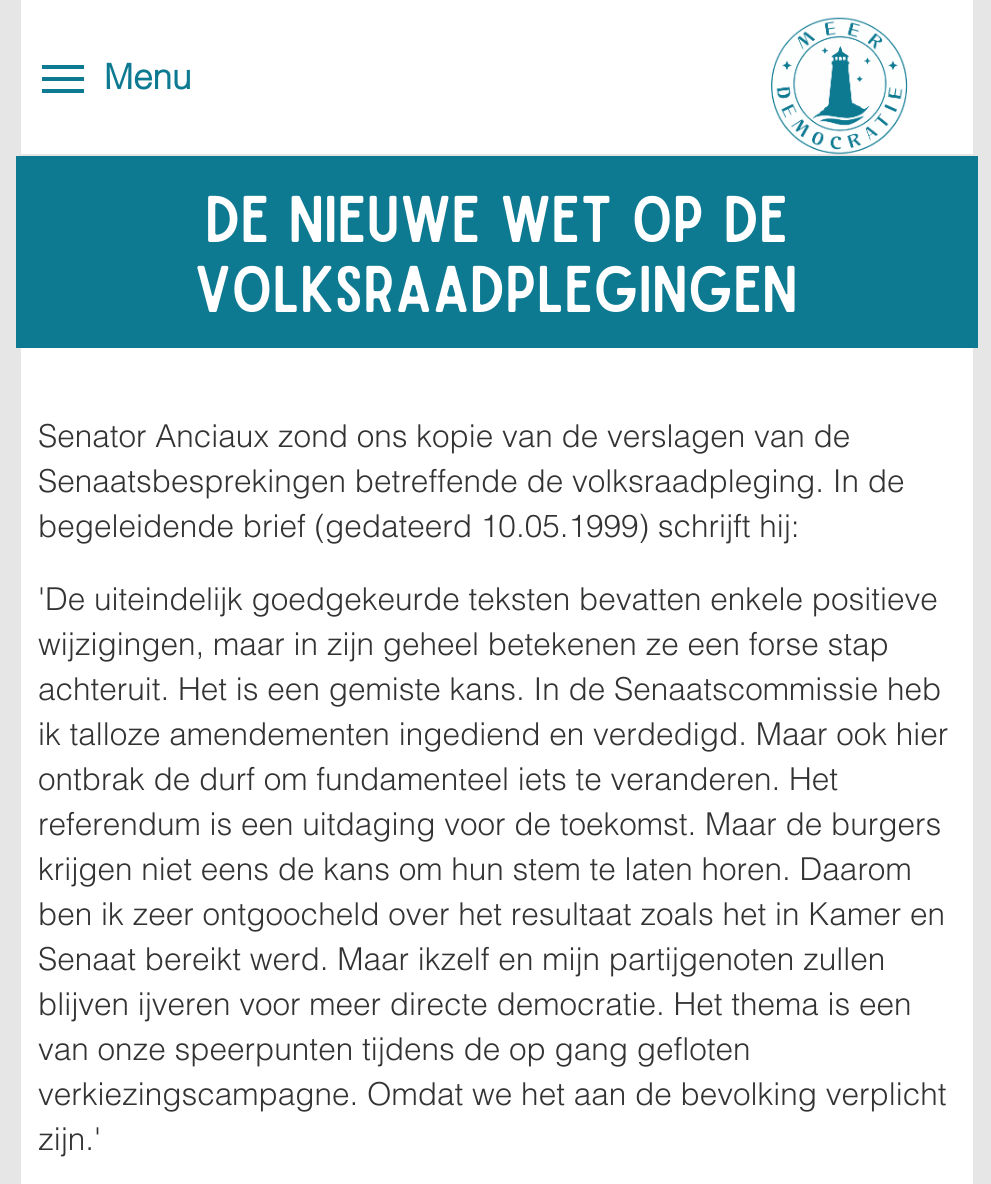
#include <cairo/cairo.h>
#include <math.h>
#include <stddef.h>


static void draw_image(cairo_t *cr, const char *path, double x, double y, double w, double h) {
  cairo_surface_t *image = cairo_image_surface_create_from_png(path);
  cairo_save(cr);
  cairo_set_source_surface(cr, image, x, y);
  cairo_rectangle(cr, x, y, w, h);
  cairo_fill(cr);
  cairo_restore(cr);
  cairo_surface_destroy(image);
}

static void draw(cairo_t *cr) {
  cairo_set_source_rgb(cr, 230 / 255.0, 230 / 255.0, 230 / 255.0);
  cairo_paint(cr);
  cairo_set_source_rgb(cr, 1, 1, 1);
  cairo_rectangle(cr, 21, 0, 952, 154);
  cairo_fill(cr);
  cairo_set_source_rgb(cr, 14 / 255.0, 122 / 255.0, 146 / 255.0);
  cairo_rectangle(cr, 42, 77, 42, 4);
  cairo_fill(cr);
  cairo_rectangle(cr, 42, 65, 42, 4);
  cairo_fill(cr);
  cairo_rectangle(cr, 42, 89, 42, 4);
  cairo_fill(cr);
  draw_image(cr, "images/1.png", 771, 17, 137, 138);
  cairo_rectangle(cr, 16, 156, 962, 192);
  cairo_fill(cr);
  cairo_set_source_rgb(cr, 1, 1, 1);
  cairo_rectangle(cr, 21, 348, 952, 836);
  cairo_fill(cr);
  cairo_select_font_face(cr, "Helvetica", CAIRO_FONT_SLANT_NORMAL, CAIRO_FONT_WEIGHT_BOLD);
  cairo_set_font_size(cr, 35);
  cairo_set_source_rgb(cr, 14 / 255.0, 122 / 255.0, 146 / 255.0);
  cairo_move_to(cr, 104, 89);
  cairo_show_text(cr, "Menu");
  cairo_select_font_face(cr, "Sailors", CAIRO_FONT_SLANT_NORMAL, CAIRO_FONT_WEIGHT_NORMAL);
  cairo_set_font_size(cr, 63);
  cairo_set_source_rgb(cr, 1, 1, 1);
  cairo_move_to(cr, 205, 242);
  cairo_show_text(cr, "De nieuwe wet op de");
  cairo_move_to(cr, 194, 312);
  cairo_show_text(cr, "volksraadplegingen");
  cairo_select_font_face(cr, "Helvetica Light", CAIRO_FONT_SLANT_NORMAL, CAIRO_FONT_WEIGHT_NORMAL);
  cairo_set_font_size(cr, 31.5);
  cairo_set_source_rgb(cr, 51 / 255.0, 51 / 255.0, 51 / 255.0);
  cairo_move_to(cr, 38, 447);
  cairo_show_text(cr, "Senator Anciaux zond ons kopie van de verslagen van de");
  cairo_move_to(cr, 38, 492);
  cairo_show_text(cr, "Senaatsbesprekingen betreffende de volksraadpleging. In de");
  cairo_move_to(cr, 38, 537);
  cairo_show_text(cr, "begeleidende brief (gedateerd 10.05.1999) schrijft hij:");
  cairo_move_to(cr, 38, 610);
  cairo_show_text(cr, "'De uiteindelijk goedgekeurde teksten bevatten enkele positieve");
  cairo_move_to(cr, 38, 655);
  cairo_show_text(cr, "wijzigingen, maar in zijn geheel betekenen ze een forse stap");
  cairo_move_to(cr, 38, 700);
  cairo_show_text(cr, "achteruit. Het is een gemiste kans. In de Senaatscommissie heb");
  cairo_move_to(cr, 38, 745);
  cairo_show_text(cr, "ik talloze amendementen ingediend en verdedigd. Maar ook hier");
  cairo_move_to(cr, 38, 790);
  cairo_show_text(cr, "ontbrak de durf om fundamenteel iets te veranderen. Het");
  cairo_move_to(cr, 38, 835);
  cairo_show_text(cr, "referendum is een uitdaging voor de toekomst. Maar de burgers");
  cairo_move_to(cr, 38, 880);
  cairo_show_text(cr, "krijgen niet eens de kans om hun stem te laten horen. Daarom");
  cairo_move_to(cr, 38, 925);
  cairo_show_text(cr, "ben ik zeer ontgoocheld over het resultaat zoals het in Kamer en");
  cairo_move_to(cr, 38, 970);
  cairo_show_text(cr, "Senaat bereikt werd. Maar ikzelf en mijn partijgenoten zullen");
  cairo_move_to(cr, 38, 1015);
  cairo_show_text(cr, "blijven ijveren voor meer directe democratie. Het thema is een");
  cairo_move_to(cr, 38, 1060);
  cairo_show_text(cr, "van onze speerpunten tijdens de op gang gefloten");
  cairo_move_to(cr, 38, 1105);
  cairo_show_text(cr, "verkiezingscampagne. Omdat we het aan de bevolking verplicht");
  cairo_move_to(cr, 38, 1150);
  cairo_show_text(cr, "zijn.'");
}

int main(void) {
  cairo_surface_t *surface = cairo_image_surface_create(CAIRO_FORMAT_RGB24, 991, 1184);
  cairo_t *cr = cairo_create(surface);
  cairo_font_options_t *options = cairo_font_options_create();
  cairo_font_options_set_hint_metrics(options, CAIRO_HINT_METRICS_OFF);
  cairo_font_options_set_hint_style(options, CAIRO_HINT_STYLE_NONE);
  cairo_set_font_options(cr, options);
  cairo_set_miter_limit(cr, 4);
  draw(cr);
  cairo_surface_write_to_png(surface, "out.png");
  cairo_font_options_destroy(options);
  cairo_destroy(cr);
  cairo_surface_destroy(surface);
  return 0;
}
